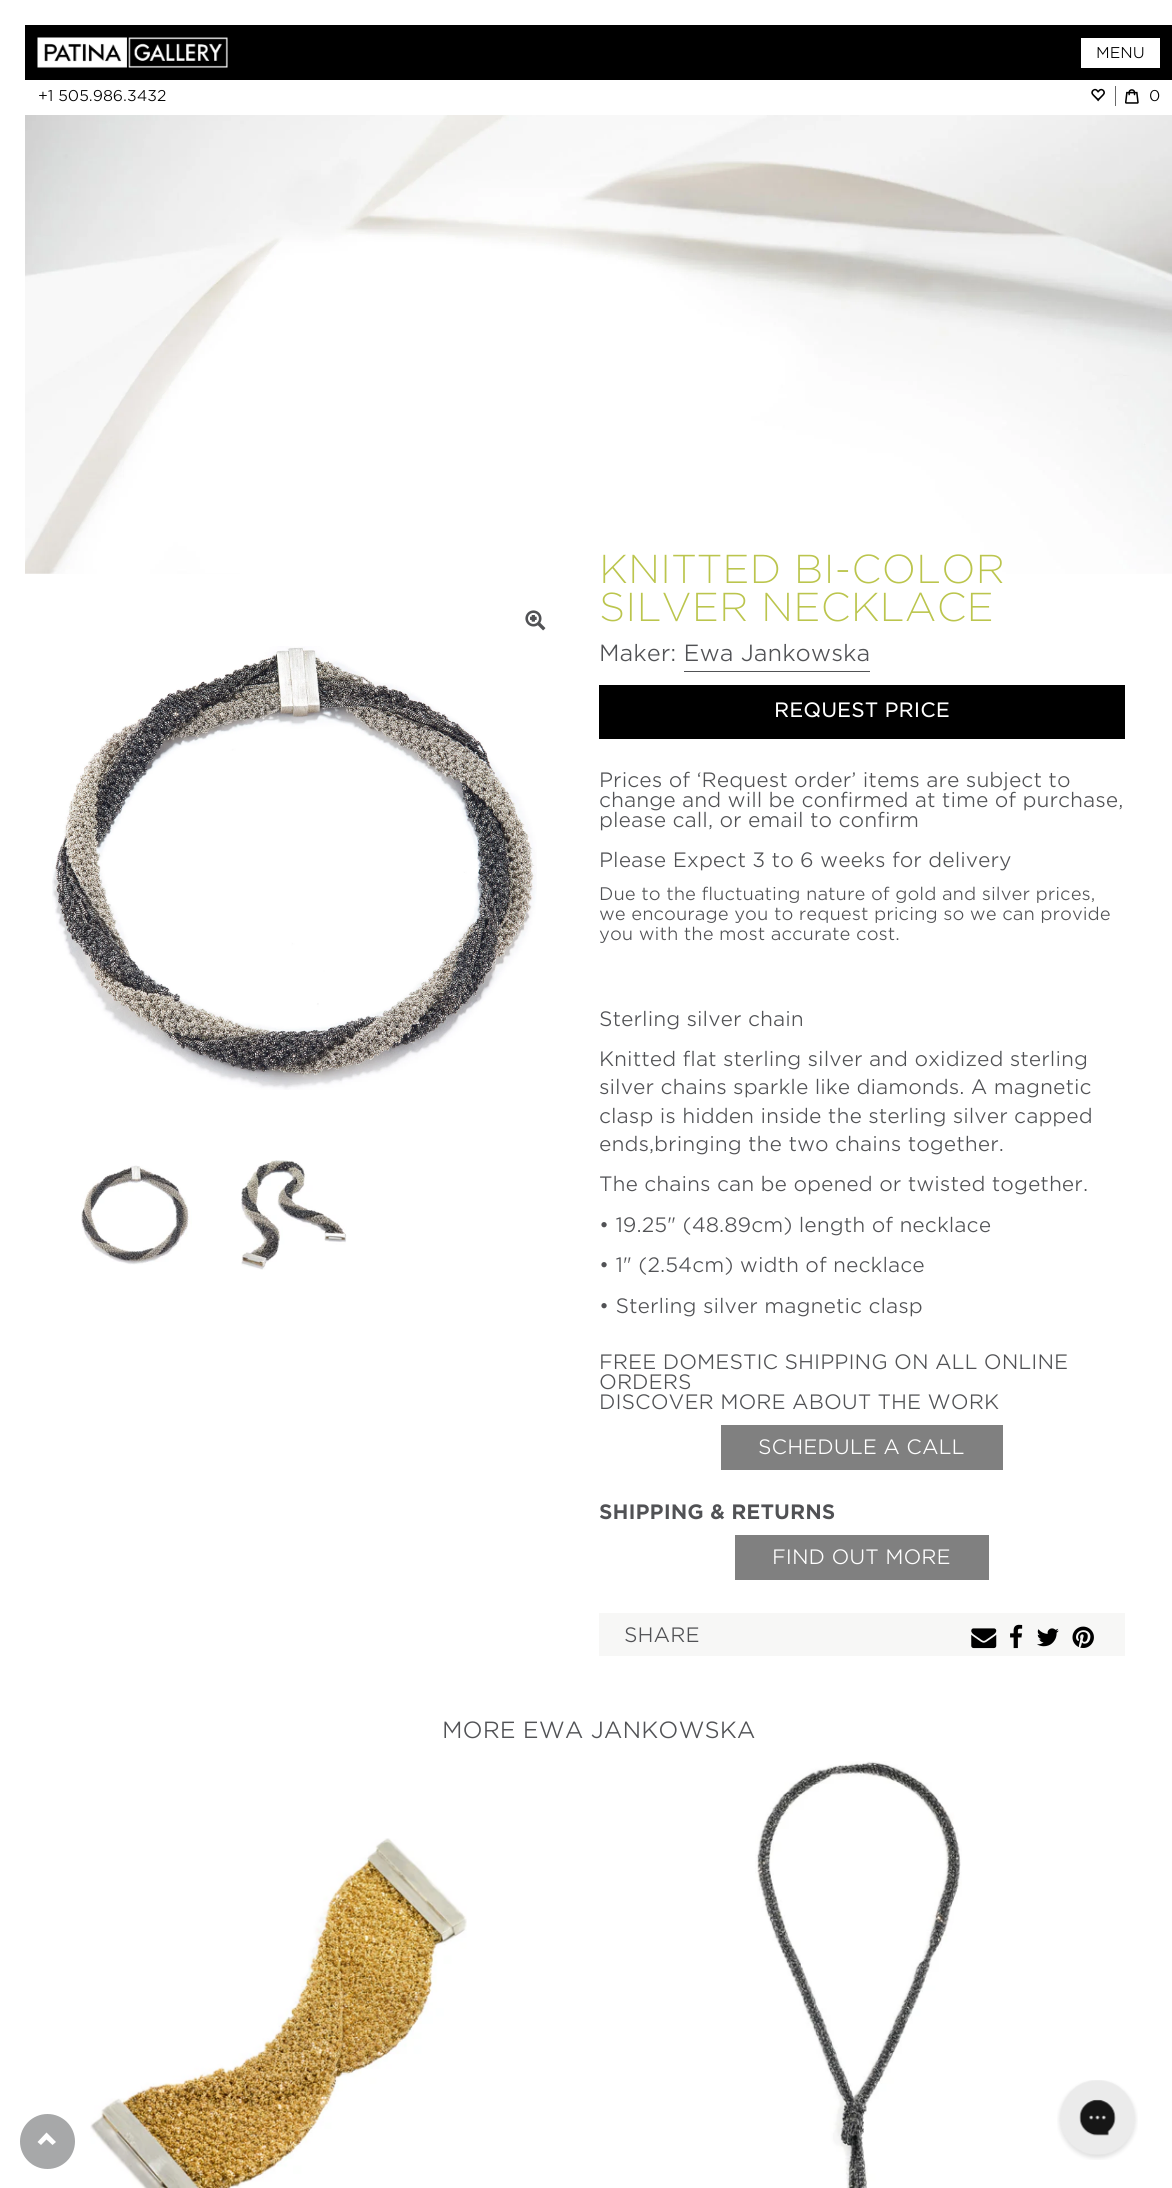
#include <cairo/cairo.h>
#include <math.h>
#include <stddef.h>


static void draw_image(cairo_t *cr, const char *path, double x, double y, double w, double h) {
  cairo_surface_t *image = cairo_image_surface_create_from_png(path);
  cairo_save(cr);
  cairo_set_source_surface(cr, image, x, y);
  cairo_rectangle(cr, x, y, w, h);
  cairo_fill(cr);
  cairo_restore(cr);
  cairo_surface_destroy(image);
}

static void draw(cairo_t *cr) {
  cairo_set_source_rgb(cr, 1, 1, 1);
  cairo_paint(cr);
  draw_image(cr, "images/1.png", 25, 115, 1147, 459);
  cairo_set_source_rgb(cr, 0, 0, 0);
  cairo_rectangle(cr, 25, 25, 1147, 55);
  cairo_fill(cr);
  draw_image(cr, "images/2.png", 37, 37, 191, 31);
  cairo_set_source_rgb(cr, 1, 1, 1);
  cairo_rectangle(cr, 1081, 38, 79, 30);
  cairo_fill(cr);
  cairo_set_source_rgb(cr, 105 / 255.0, 105 / 255.0, 105 / 255.0);
  cairo_rectangle(cr, 1115, 86, 1, 20);
  cairo_fill(cr);
  draw_image(cr, "images/3.png", 1091, 88, 14, 14);
  draw_image(cr, "images/4.png", 1125, 89, 14, 15);
  draw_image(cr, "images/5.png", 525, 610, 21, 21);
  draw_image(cr, "images/6.png", 52, 646, 485, 444);
  draw_image(cr, "images/7.png", 81, 1165, 111, 100);
  draw_image(cr, "images/8.png", 241, 1160, 106, 110);
  cairo_set_source_rgb(cr, 81 / 255.0, 82 / 255.0, 85 / 255.0);
  cairo_rectangle(cr, 684, 671, 186, 1);
  cairo_fill(cr);
  cairo_set_source_rgb(cr, 0, 0, 0);
  cairo_rectangle(cr, 599, 685, 526, 54);
  cairo_fill(cr);
  cairo_set_source_rgb(cr, 128 / 255.0, 128 / 255.0, 128 / 255.0);
  cairo_rectangle(cr, 721, 1425, 282, 45);
  cairo_fill(cr);
  cairo_rectangle(cr, 735, 1535, 254, 45);
  cairo_fill(cr);
  cairo_set_source_rgb(cr, 247 / 255.0, 247 / 255.0, 246 / 255.0);
  cairo_rectangle(cr, 599, 1613, 526, 43);
  cairo_fill(cr);
  draw_image(cr, "images/9.png", 971, 1628, 26, 21);
  draw_image(cr, "images/10.png", 1010, 1624, 13, 25);
  draw_image(cr, "images/11.png", 1037, 1628, 22, 19);
  draw_image(cr, "images/12.png", 1072, 1626, 22, 22);
  draw_image(cr, "images/13.png", 90, 1838, 377, 350);
  draw_image(cr, "images/14.png", 755, 1761, 207, 427);
  cairo_set_source_rgb(cr, 167 / 255.0, 168 / 255.0, 169 / 255.0);
  cairo_arc(cr, 47.5, 2141.5, 27.5, 0, 2 * M_PI);
  cairo_fill(cr);
  cairo_set_source_rgb(cr, 1, 1, 1);
  cairo_new_path(cr);
  cairo_move_to(cr, 56, 2142);
  cairo_line_to(cr, 52.5, 2145);
  cairo_line_to(cr, 46.5, 2139.5);
  cairo_line_to(cr, 41, 2145);
  cairo_line_to(cr, 37.5, 2142);
  cairo_line_to(cr, 46.5, 2132.5);
  cairo_close_path(cr);
  cairo_fill(cr);
  draw_image(cr, "images/15.png", 1057, 2080, 81, 80);
  cairo_select_font_face(cr, "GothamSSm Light", CAIRO_FONT_SLANT_NORMAL, CAIRO_FONT_WEIGHT_NORMAL);
  cairo_set_font_size(cr, 15);
  cairo_set_source_rgb(cr, 0, 0, 0);
  cairo_move_to(cr, 1096, 58);
  cairo_show_text(cr, "MENU");
  cairo_move_to(cr, 38, 101);
  cairo_show_text(cr, "+1 505.986.3432");
  cairo_move_to(cr, 1149, 101);
  cairo_show_text(cr, "0");
  cairo_select_font_face(cr, "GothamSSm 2 Light", CAIRO_FONT_SLANT_NORMAL, CAIRO_FONT_WEIGHT_NORMAL);
  cairo_set_font_size(cr, 38.75);
  cairo_set_source_rgb(cr, 187 / 255.0, 197 / 255.0, 77 / 255.0);
  cairo_move_to(cr, 599, 583);
  cairo_show_text(cr, "KNITTED BI-COLOR");
  cairo_move_to(cr, 599, 621);
  cairo_show_text(cr, "SILVER NECKLACE");
  cairo_select_font_face(cr, "GothamSSm Light", CAIRO_FONT_SLANT_NORMAL, CAIRO_FONT_WEIGHT_NORMAL);
  cairo_set_font_size(cr, 22.5);
  cairo_set_source_rgb(cr, 81 / 255.0, 82 / 255.0, 85 / 255.0);
  cairo_move_to(cr, 599, 661);
  cairo_show_text(cr, "Maker: Ewa Jankowska");
  cairo_select_font_face(cr, "GothamSSm", CAIRO_FONT_SLANT_NORMAL, CAIRO_FONT_WEIGHT_NORMAL);
  cairo_set_font_size(cr, 20);
  cairo_set_source_rgb(cr, 1, 1, 1);
  cairo_move_to(cr, 774, 717);
  cairo_show_text(cr, "REQUEST PRICE");
  cairo_select_font_face(cr, "GothamSSm Light", CAIRO_FONT_SLANT_NORMAL, CAIRO_FONT_WEIGHT_NORMAL);
  cairo_set_source_rgb(cr, 81 / 255.0, 82 / 255.0, 85 / 255.0);
  cairo_move_to(cr, 599, 787);
  cairo_show_text(cr, "Prices of ‘Request order’ items are subject to");
  cairo_move_to(cr, 599, 807);
  cairo_show_text(cr, "change and will be confirmed at time of purchase,");
  cairo_move_to(cr, 599, 827);
  cairo_show_text(cr, "please call, or email to confirm");
  cairo_move_to(cr, 599, 867);
  cairo_show_text(cr, "Please Expect 3 to 6 weeks for delivery");
  cairo_set_font_size(cr, 17.5);
  cairo_move_to(cr, 599, 900);
  cairo_show_text(cr, "Due to the fluctuating nature of gold and silver prices,");
  cairo_move_to(cr, 599, 920);
  cairo_show_text(cr, "we encourage you to request pricing so we can provide");
  cairo_move_to(cr, 599, 940);
  cairo_show_text(cr, "you with the most accurate cost.");
  cairo_set_font_size(cr, 20);
  cairo_move_to(cr, 599, 1026);
  cairo_show_text(cr, "Sterling silver chain");
  cairo_move_to(cr, 599, 1066);
  cairo_show_text(cr, "Knitted flat sterling silver and oxidized sterling");
  cairo_move_to(cr, 599, 1094);
  cairo_show_text(cr, "silver chains sparkle like diamonds. A magnetic");
  cairo_move_to(cr, 599, 1123);
  cairo_show_text(cr, "clasp is hidden inside the sterling silver capped");
  cairo_move_to(cr, 599, 1151);
  cairo_show_text(cr, "ends,bringing the two chains together.");
  cairo_move_to(cr, 599, 1191);
  cairo_show_text(cr, "The chains can be opened or twisted together.");
  cairo_move_to(cr, 599, 1232);
  cairo_show_text(cr, "• 19.25\" (48.89cm) length of necklace");
  cairo_move_to(cr, 599, 1272);
  cairo_show_text(cr, "• 1\" (2.54cm) width of necklace");
  cairo_move_to(cr, 599, 1313);
  cairo_show_text(cr, "• Sterling silver magnetic clasp");
  cairo_move_to(cr, 599, 1369);
  cairo_show_text(cr, "FREE DOMESTIC SHIPPING ON ALL ONLINE");
  cairo_move_to(cr, 599, 1389);
  cairo_show_text(cr, "ORDERS");
  cairo_move_to(cr, 599, 1409);
  cairo_show_text(cr, "DISCOVER MORE ABOUT THE WORK");
  cairo_set_source_rgb(cr, 1, 1, 1);
  cairo_move_to(cr, 758, 1454);
  cairo_show_text(cr, "SCHEDULE A CALL");
  cairo_select_font_face(cr, "GothamSSm", CAIRO_FONT_SLANT_NORMAL, CAIRO_FONT_WEIGHT_BOLD);
  cairo_set_source_rgb(cr, 81 / 255.0, 82 / 255.0, 85 / 255.0);
  cairo_move_to(cr, 599, 1519);
  cairo_show_text(cr, "SHIPPING & RETURNS");
  cairo_select_font_face(cr, "GothamSSm Light", CAIRO_FONT_SLANT_NORMAL, CAIRO_FONT_WEIGHT_NORMAL);
  cairo_set_source_rgb(cr, 1, 1, 1);
  cairo_move_to(cr, 772, 1564);
  cairo_show_text(cr, "FIND OUT MORE");
  cairo_set_source_rgb(cr, 81 / 255.0, 82 / 255.0, 85 / 255.0);
  cairo_move_to(cr, 624, 1642);
  cairo_show_text(cr, "SHARE");
  cairo_set_font_size(cr, 22.5);
  cairo_move_to(cr, 442, 1738);
  cairo_show_text(cr, "MORE EWA JANKOWSKA");
}

int main(void) {
  cairo_surface_t *surface = cairo_image_surface_create(CAIRO_FORMAT_RGB24, 1172, 2188);
  cairo_t *cr = cairo_create(surface);
  cairo_font_options_t *options = cairo_font_options_create();
  cairo_font_options_set_hint_metrics(options, CAIRO_HINT_METRICS_OFF);
  cairo_font_options_set_hint_style(options, CAIRO_HINT_STYLE_NONE);
  cairo_set_font_options(cr, options);
  cairo_set_miter_limit(cr, 4);
  draw(cr);
  cairo_surface_write_to_png(surface, "out.png");
  cairo_font_options_destroy(options);
  cairo_destroy(cr);
  cairo_surface_destroy(surface);
  return 0;
}
